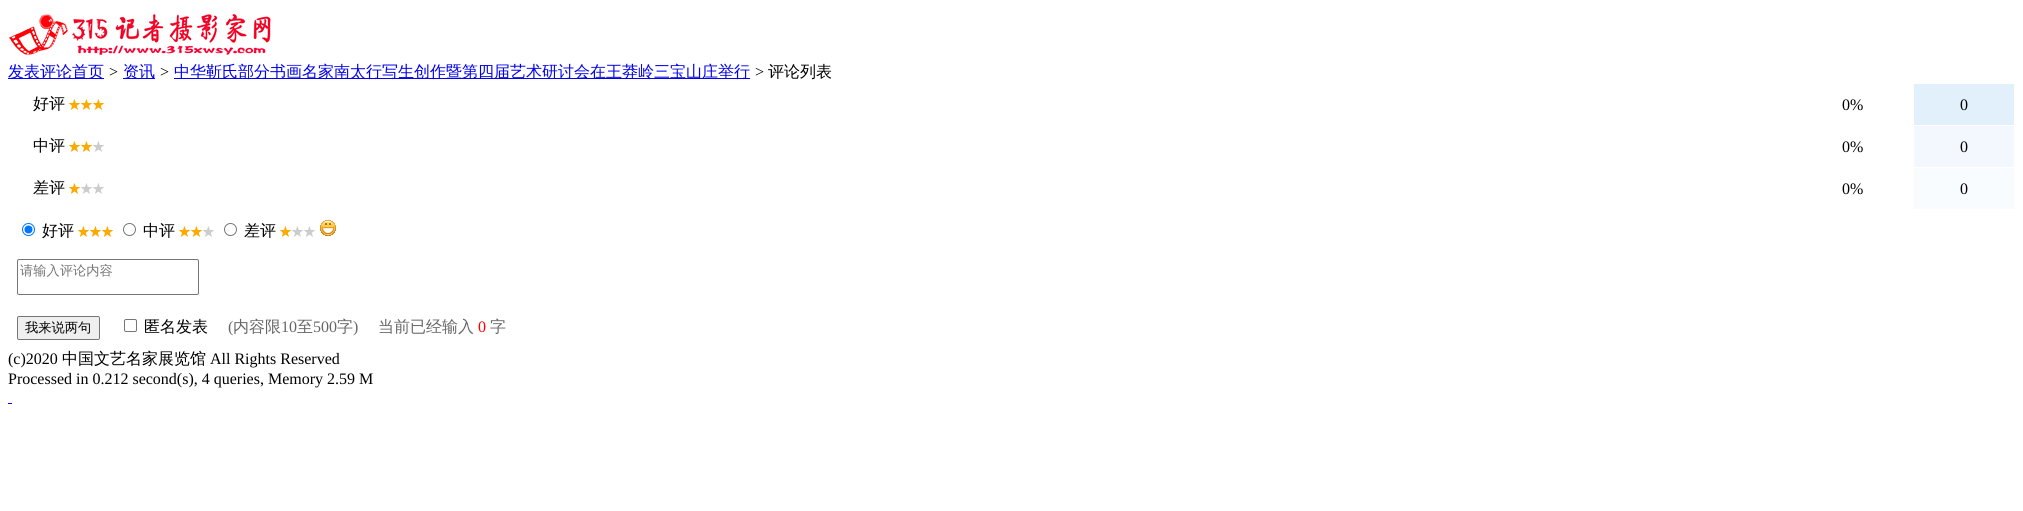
#include <cairo/cairo.h>
#include <math.h>
#include <stddef.h>


static void rounded_rect(cairo_t *cr, double x, double y, double w, double h, double r) {
  cairo_new_sub_path(cr);
  cairo_arc(cr, x + w - r, y + h - r, r, 0, M_PI / 2);
  cairo_arc(cr, x + r, y + h - r, r, M_PI / 2, M_PI);
  cairo_arc(cr, x + r, y + r, r, M_PI, 1.5 * M_PI);
  cairo_arc(cr, x + w - r, y + r, r, 1.5 * M_PI, 2 * M_PI);
  cairo_close_path(cr);
}

static void draw_image(cairo_t *cr, const char *path, double x, double y, double w, double h) {
  cairo_surface_t *image = cairo_image_surface_create_from_png(path);
  cairo_save(cr);
  cairo_set_source_surface(cr, image, x, y);
  cairo_rectangle(cr, x, y, w, h);
  cairo_fill(cr);
  cairo_restore(cr);
  cairo_surface_destroy(image);
}

static void draw(cairo_t *cr) {
  cairo_set_source_rgb(cr, 1, 1, 1);
  cairo_paint(cr);
  draw_image(cr, "images/1.png", 9, 14, 262, 41);
  cairo_set_source_rgb(cr, 0, 0, 238 / 255.0);
  cairo_rectangle(cr, 8, 78, 96, 1);
  cairo_fill(cr);
  cairo_rectangle(cr, 123, 78, 32, 1);
  cairo_fill(cr);
  cairo_rectangle(cr, 174, 78, 576, 1);
  cairo_fill(cr);
  draw_image(cr, "images/2.png", 69, 99, 35, 11);
  cairo_set_source_rgb(cr, 225 / 255.0, 240 / 255.0, 251 / 255.0);
  cairo_rectangle(cr, 1914, 84, 100, 41);
  cairo_fill(cr);
  draw_image(cr, "images/3.png", 69, 141, 35, 11);
  cairo_set_source_rgb(cr, 242 / 255.0, 248 / 255.0, 253 / 255.0);
  cairo_rectangle(cr, 1914, 126, 100, 41);
  cairo_fill(cr);
  draw_image(cr, "images/4.png", 69, 183, 35, 11);
  cairo_set_source_rgb(cr, 249 / 255.0, 252 / 255.0, 254 / 255.0);
  cairo_rectangle(cr, 1914, 168, 100, 41);
  cairo_fill(cr);
  cairo_arc(cr, 28.5, 229.5, 6, 0, 2 * M_PI);
  cairo_set_source_rgb(cr, 0, 117 / 255.0, 1);
  cairo_set_line_width(cr, 1);
  cairo_stroke(cr);
  cairo_arc(cr, 28.5, 229.5, 4, 0, 2 * M_PI);
  cairo_fill(cr);
  draw_image(cr, "images/2.png", 78, 226, 35, 11);
  cairo_arc(cr, 129.5, 229.5, 6, 0, 2 * M_PI);
  cairo_set_source_rgb(cr, 118 / 255.0, 118 / 255.0, 118 / 255.0);
  cairo_stroke(cr);
  draw_image(cr, "images/3.png", 179, 226, 35, 11);
  cairo_arc(cr, 230.5, 229.5, 6, 0, 2 * M_PI);
  cairo_stroke(cr);
  draw_image(cr, "images/4.png", 280, 226, 35, 11);
  draw_image(cr, "images/5.png", 320, 220, 16, 16);
  rounded_rect(cr, 17.5, 259.5, 181, 35, 1.5);
  cairo_stroke(cr);
  cairo_set_source_rgb(cr, 239 / 255.0, 239 / 255.0, 239 / 255.0);
  rounded_rect(cr, 17.5, 316.5, 82, 23, 1.5);
  cairo_fill_preserve(cr);
  cairo_set_source_rgb(cr, 118 / 255.0, 118 / 255.0, 118 / 255.0);
  cairo_stroke(cr);
  rounded_rect(cr, 124.5, 319.5, 12, 12, 1.5);
  cairo_stroke(cr);
  cairo_set_source_rgb(cr, 0, 0, 238 / 255.0);
  cairo_rectangle(cr, 8, 403, 4, 1);
  cairo_fill(cr);
  cairo_select_font_face(cr, "WenQuanYi Zen Hei Medium", CAIRO_FONT_SLANT_NORMAL, CAIRO_FONT_WEIGHT_NORMAL);
  cairo_set_font_size(cr, 16);
  cairo_move_to(cr, 8, 77);
  cairo_show_text(cr, "发表评论首页");
  cairo_select_font_face(cr, "Liberation Serif", CAIRO_FONT_SLANT_ITALIC, CAIRO_FONT_WEIGHT_NORMAL);
  cairo_set_source_rgb(cr, 0, 0, 0);
  cairo_move_to(cr, 108, 77);
  cairo_show_text(cr, ">");
  cairo_select_font_face(cr, "WenQuanYi Zen Hei Medium", CAIRO_FONT_SLANT_NORMAL, CAIRO_FONT_WEIGHT_NORMAL);
  cairo_set_source_rgb(cr, 0, 0, 238 / 255.0);
  cairo_move_to(cr, 123, 77);
  cairo_show_text(cr, "资讯");
  cairo_select_font_face(cr, "Liberation Serif", CAIRO_FONT_SLANT_ITALIC, CAIRO_FONT_WEIGHT_NORMAL);
  cairo_set_source_rgb(cr, 0, 0, 0);
  cairo_move_to(cr, 159, 77);
  cairo_show_text(cr, ">");
  cairo_select_font_face(cr, "WenQuanYi Zen Hei Medium", CAIRO_FONT_SLANT_NORMAL, CAIRO_FONT_WEIGHT_NORMAL);
  cairo_set_source_rgb(cr, 0, 0, 238 / 255.0);
  cairo_move_to(cr, 174, 77);
  cairo_show_text(cr, "中华靳氏部分书画名家南太行写生创作暨第四届艺术研讨会在王莽岭三宝山庄举行");
  cairo_select_font_face(cr, "Liberation Serif", CAIRO_FONT_SLANT_ITALIC, CAIRO_FONT_WEIGHT_NORMAL);
  cairo_set_source_rgb(cr, 0, 0, 0);
  cairo_move_to(cr, 754, 77);
  cairo_show_text(cr, ">");
  cairo_select_font_face(cr, "WenQuanYi Zen Hei Medium", CAIRO_FONT_SLANT_NORMAL, CAIRO_FONT_WEIGHT_NORMAL);
  cairo_move_to(cr, 768, 77);
  cairo_show_text(cr, "评论列表");
  cairo_move_to(cr, 33, 109);
  cairo_show_text(cr, "好评");
  cairo_select_font_face(cr, "Liberation Serif", CAIRO_FONT_SLANT_NORMAL, CAIRO_FONT_WEIGHT_NORMAL);
  cairo_move_to(cr, 1842, 110);
  cairo_show_text(cr, "0%");
  cairo_move_to(cr, 1960, 110);
  cairo_show_text(cr, "0");
  cairo_select_font_face(cr, "WenQuanYi Zen Hei Medium", CAIRO_FONT_SLANT_NORMAL, CAIRO_FONT_WEIGHT_NORMAL);
  cairo_move_to(cr, 33, 151);
  cairo_show_text(cr, "中评");
  cairo_select_font_face(cr, "Liberation Serif", CAIRO_FONT_SLANT_NORMAL, CAIRO_FONT_WEIGHT_NORMAL);
  cairo_move_to(cr, 1842, 152);
  cairo_show_text(cr, "0%");
  cairo_move_to(cr, 1960, 152);
  cairo_show_text(cr, "0");
  cairo_select_font_face(cr, "WenQuanYi Zen Hei Medium", CAIRO_FONT_SLANT_NORMAL, CAIRO_FONT_WEIGHT_NORMAL);
  cairo_move_to(cr, 33, 193);
  cairo_show_text(cr, "差评");
  cairo_select_font_face(cr, "Liberation Serif", CAIRO_FONT_SLANT_NORMAL, CAIRO_FONT_WEIGHT_NORMAL);
  cairo_move_to(cr, 1842, 194);
  cairo_show_text(cr, "0%");
  cairo_move_to(cr, 1960, 194);
  cairo_show_text(cr, "0");
  cairo_select_font_face(cr, "WenQuanYi Zen Hei Medium", CAIRO_FONT_SLANT_NORMAL, CAIRO_FONT_WEIGHT_NORMAL);
  cairo_move_to(cr, 42, 236);
  cairo_show_text(cr, "好评");
  cairo_move_to(cr, 143, 236);
  cairo_show_text(cr, "中评");
  cairo_move_to(cr, 244, 236);
  cairo_show_text(cr, "差评");
  cairo_set_font_size(cr, 13.25);
  cairo_set_source_rgb(cr, 117 / 255.0, 117 / 255.0, 117 / 255.0);
  cairo_move_to(cr, 20, 275);
  cairo_show_text(cr, "请输入评论内容");
  cairo_set_source_rgb(cr, 0, 0, 0);
  cairo_move_to(cr, 25, 332);
  cairo_show_text(cr, "我来说两句");
  cairo_set_font_size(cr, 16);
  cairo_move_to(cr, 144, 332);
  cairo_show_text(cr, "匿名发表");
  cairo_select_font_face(cr, "Liberation Serif", CAIRO_FONT_SLANT_NORMAL, CAIRO_FONT_WEIGHT_NORMAL);
  cairo_set_source_rgb(cr, 102 / 255.0, 102 / 255.0, 102 / 255.0);
  cairo_move_to(cr, 228, 332);
  cairo_show_text(cr, "(");
  cairo_select_font_face(cr, "WenQuanYi Zen Hei Medium", CAIRO_FONT_SLANT_NORMAL, CAIRO_FONT_WEIGHT_NORMAL);
  cairo_move_to(cr, 233, 332);
  cairo_show_text(cr, "内容限");
  cairo_select_font_face(cr, "Liberation Serif", CAIRO_FONT_SLANT_NORMAL, CAIRO_FONT_WEIGHT_NORMAL);
  cairo_move_to(cr, 281, 332);
  cairo_show_text(cr, "10");
  cairo_select_font_face(cr, "WenQuanYi Zen Hei Medium", CAIRO_FONT_SLANT_NORMAL, CAIRO_FONT_WEIGHT_NORMAL);
  cairo_move_to(cr, 297, 332);
  cairo_show_text(cr, "至");
  cairo_select_font_face(cr, "Liberation Serif", CAIRO_FONT_SLANT_NORMAL, CAIRO_FONT_WEIGHT_NORMAL);
  cairo_move_to(cr, 313, 332);
  cairo_show_text(cr, "500");
  cairo_select_font_face(cr, "WenQuanYi Zen Hei Medium", CAIRO_FONT_SLANT_NORMAL, CAIRO_FONT_WEIGHT_NORMAL);
  cairo_move_to(cr, 337, 332);
  cairo_show_text(cr, "字");
  cairo_select_font_face(cr, "Liberation Serif", CAIRO_FONT_SLANT_NORMAL, CAIRO_FONT_WEIGHT_NORMAL);
  cairo_move_to(cr, 353, 332);
  cairo_show_text(cr, ")");
  cairo_select_font_face(cr, "WenQuanYi Zen Hei Medium", CAIRO_FONT_SLANT_NORMAL, CAIRO_FONT_WEIGHT_NORMAL);
  cairo_move_to(cr, 378, 332);
  cairo_show_text(cr, "当前已经输入");
  cairo_select_font_face(cr, "Liberation Serif", CAIRO_FONT_SLANT_NORMAL, CAIRO_FONT_WEIGHT_NORMAL);
  cairo_set_source_rgb(cr, 1, 0, 0);
  cairo_move_to(cr, 478, 332);
  cairo_show_text(cr, "0");
  cairo_select_font_face(cr, "WenQuanYi Zen Hei Medium", CAIRO_FONT_SLANT_NORMAL, CAIRO_FONT_WEIGHT_NORMAL);
  cairo_set_source_rgb(cr, 102 / 255.0, 102 / 255.0, 102 / 255.0);
  cairo_move_to(cr, 490, 332);
  cairo_show_text(cr, "字");
  cairo_select_font_face(cr, "Liberation Serif", CAIRO_FONT_SLANT_NORMAL, CAIRO_FONT_WEIGHT_NORMAL);
  cairo_set_source_rgb(cr, 0, 0, 0);
  cairo_move_to(cr, 8, 364);
  cairo_show_text(cr, "(c)2020");
  cairo_select_font_face(cr, "WenQuanYi Zen Hei Medium", CAIRO_FONT_SLANT_NORMAL, CAIRO_FONT_WEIGHT_NORMAL);
  cairo_move_to(cr, 62, 364);
  cairo_show_text(cr, "中国文艺名家展览馆");
  cairo_select_font_face(cr, "Liberation Serif", CAIRO_FONT_SLANT_NORMAL, CAIRO_FONT_WEIGHT_NORMAL);
  cairo_move_to(cr, 210, 364);
  cairo_show_text(cr, "All Rights Reserved");
  cairo_move_to(cr, 8, 384);
  cairo_show_text(cr, "Processed in 0.212 second(s), 4 queries, Memory 2.59 M");
}

int main(void) {
  cairo_surface_t *surface = cairo_image_surface_create(CAIRO_FORMAT_RGB24, 2023, 511);
  cairo_t *cr = cairo_create(surface);
  cairo_font_options_t *options = cairo_font_options_create();
  cairo_font_options_set_hint_metrics(options, CAIRO_HINT_METRICS_OFF);
  cairo_font_options_set_hint_style(options, CAIRO_HINT_STYLE_NONE);
  cairo_set_font_options(cr, options);
  cairo_set_miter_limit(cr, 4);
  draw(cr);
  cairo_surface_write_to_png(surface, "out.png");
  cairo_font_options_destroy(options);
  cairo_destroy(cr);
  cairo_surface_destroy(surface);
  return 0;
}
